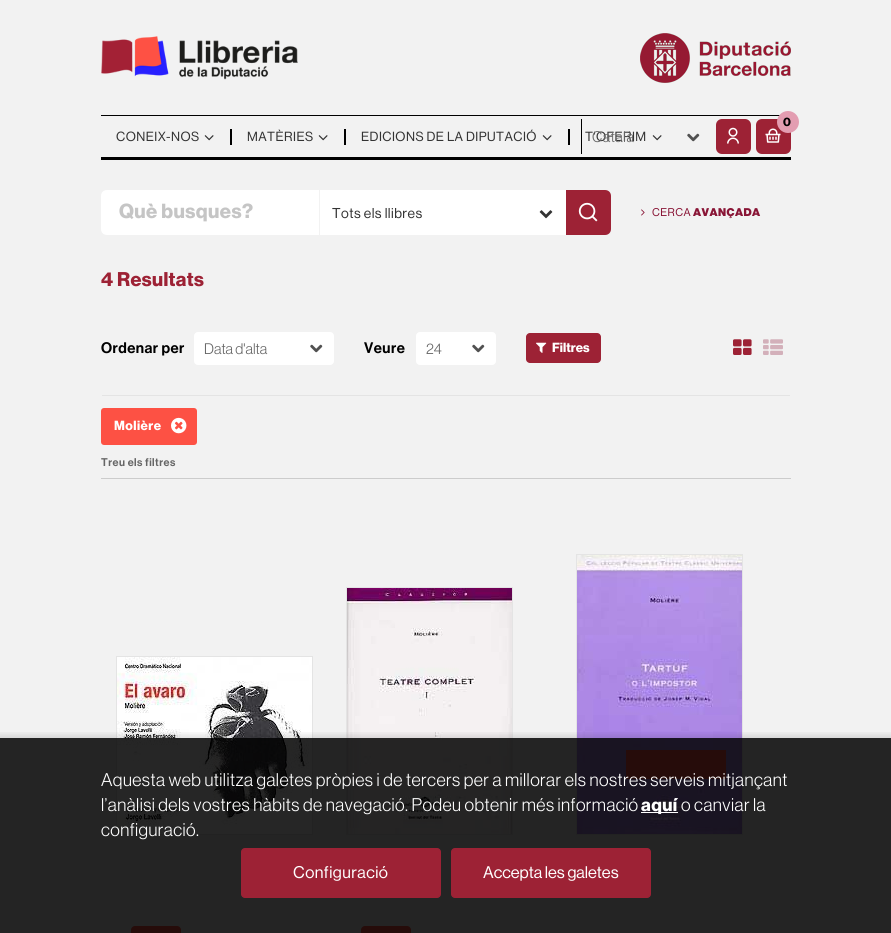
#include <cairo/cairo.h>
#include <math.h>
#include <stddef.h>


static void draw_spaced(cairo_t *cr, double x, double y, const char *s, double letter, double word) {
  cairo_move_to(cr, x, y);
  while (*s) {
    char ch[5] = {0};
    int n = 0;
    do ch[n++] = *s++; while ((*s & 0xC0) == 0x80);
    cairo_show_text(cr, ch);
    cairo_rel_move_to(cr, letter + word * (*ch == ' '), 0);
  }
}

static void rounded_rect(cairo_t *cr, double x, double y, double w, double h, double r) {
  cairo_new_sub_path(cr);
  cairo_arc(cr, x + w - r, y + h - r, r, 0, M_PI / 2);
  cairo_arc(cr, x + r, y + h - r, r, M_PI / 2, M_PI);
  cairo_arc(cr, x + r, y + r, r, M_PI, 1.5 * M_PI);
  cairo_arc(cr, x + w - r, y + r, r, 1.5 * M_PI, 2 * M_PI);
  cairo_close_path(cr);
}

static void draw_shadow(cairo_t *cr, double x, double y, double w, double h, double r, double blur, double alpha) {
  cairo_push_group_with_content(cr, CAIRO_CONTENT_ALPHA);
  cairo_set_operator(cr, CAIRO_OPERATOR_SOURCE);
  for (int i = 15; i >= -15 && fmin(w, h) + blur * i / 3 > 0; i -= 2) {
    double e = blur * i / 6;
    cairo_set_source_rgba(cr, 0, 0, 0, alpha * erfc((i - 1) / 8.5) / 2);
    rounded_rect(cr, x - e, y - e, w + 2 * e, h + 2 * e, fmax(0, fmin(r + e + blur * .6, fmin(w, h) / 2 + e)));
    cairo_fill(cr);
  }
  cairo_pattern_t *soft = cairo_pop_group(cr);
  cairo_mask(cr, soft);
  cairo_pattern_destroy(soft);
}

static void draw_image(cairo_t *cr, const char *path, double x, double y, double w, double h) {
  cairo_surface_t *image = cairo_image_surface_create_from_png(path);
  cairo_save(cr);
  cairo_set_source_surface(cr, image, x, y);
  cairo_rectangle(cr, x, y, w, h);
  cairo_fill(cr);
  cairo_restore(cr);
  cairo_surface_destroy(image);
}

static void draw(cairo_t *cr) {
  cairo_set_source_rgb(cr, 242 / 255.0, 242 / 255.0, 242 / 255.0);
  cairo_paint(cr);
  draw_image(cr, "images/1.png", 101, 36, 197, 44);
  draw_image(cr, "images/2.png", 640, 33, 151, 50);
  cairo_set_source_rgb(cr, 0, 0, 0);
  cairo_rectangle(cr, 101, 115, 679, 1);
  cairo_fill(cr);
  cairo_rectangle(cr, 101, 157, 690, 3);
  cairo_fill(cr);
  cairo_rectangle(cr, 230, 129, 2, 16);
  cairo_fill(cr);
  draw_image(cr, "images/3.png", 204, 135, 10, 6);
  cairo_rectangle(cr, 344, 129, 2, 16);
  cairo_fill(cr);
  draw_image(cr, "images/3.png", 318, 135, 10, 6);
  cairo_rectangle(cr, 568, 129, 2, 16);
  cairo_fill(cr);
  draw_image(cr, "images/3.png", 542, 135, 10, 6);
  draw_image(cr, "images/3.png", 652, 135, 10, 6);
  cairo_rectangle(cr, 581, 119, 1, 35);
  cairo_fill(cr);
  draw_image(cr, "images/4.png", 687, 133, 13, 9);
  cairo_set_source_rgb(cr, 157 / 255.0, 34 / 255.0, 53 / 255.0);
  rounded_rect(cr, 716, 119, 35, 35, 6);
  cairo_fill(cr);
  draw_image(cr, "images/5.png", 727, 127, 12, 17);
  rounded_rect(cr, 756, 119, 35, 35, 6);
  cairo_fill(cr);
  draw_image(cr, "images/6.png", 765, 128, 16, 15);
  cairo_set_source_rgb(cr, 227 / 255.0, 157 / 255.0, 177 / 255.0);
  cairo_arc(cr, 788, 122, 11, 0, 2 * M_PI);
  cairo_fill(cr);
  cairo_set_source_rgb(cr, 1, 1, 1);
  cairo_new_path(cr);
  cairo_move_to(cr, 107, 190);
  cairo_line_to(cr, 319, 190);
  cairo_line_to(cr, 319, 235);
  cairo_line_to(cr, 107, 235);
  cairo_curve_to(cr, 103.5, 235, 101, 232.5, 101, 229);
  cairo_line_to(cr, 101, 196);
  cairo_curve_to(cr, 101, 192.5, 103.5, 190, 107, 190);
  cairo_close_path(cr);
  cairo_fill(cr);
  cairo_rectangle(cr, 320, 190, 246, 45);
  cairo_fill(cr);
  draw_image(cr, "images/7.png", 539, 210, 14, 9);
  cairo_set_source_rgb(cr, 157 / 255.0, 34 / 255.0, 53 / 255.0);
  cairo_new_path(cr);
  cairo_move_to(cr, 566, 190);
  cairo_line_to(cr, 605, 190);
  cairo_curve_to(cr, 608.5, 190, 611, 192.5, 611, 196);
  cairo_line_to(cr, 611, 229);
  cairo_curve_to(cr, 611, 232.5, 608.5, 235, 605, 235);
  cairo_line_to(cr, 566, 235);
  cairo_close_path(cr);
  cairo_fill(cr);
  draw_image(cr, "images/8.png", 578, 202, 20, 20);
  draw_image(cr, "images/9.png", 641, 209, 4, 7);
  cairo_set_source_rgb(cr, 228 / 255.0, 228 / 255.0, 228 / 255.0);
  cairo_rectangle(cr, 102, 395, 688, 1);
  cairo_fill(cr);
  cairo_set_source_rgb(cr, 1, 1, 1);
  rounded_rect(cr, 194, 332, 140, 33, 4);
  cairo_fill(cr);
  draw_image(cr, "images/10.png", 310, 344, 13, 9);
  rounded_rect(cr, 416, 332, 80, 33, 4);
  cairo_fill(cr);
  draw_image(cr, "images/10.png", 472, 344, 13, 9);
  cairo_set_source_rgb(cr, 157 / 255.0, 34 / 255.0, 53 / 255.0);
  rounded_rect(cr, 526, 333, 75, 30, 4);
  cairo_fill(cr);
  draw_image(cr, "images/11.png", 536, 342, 11, 11);
  draw_image(cr, "images/12.png", 733, 339, 19, 16);
  draw_image(cr, "images/13.png", 763, 339, 20, 16);
  cairo_set_source_rgb(cr, 204 / 255.0, 204 / 255.0, 204 / 255.0);
  cairo_rectangle(cr, 101, 478, 690, 1);
  cairo_fill(cr);
  cairo_set_source_rgb(cr, 253 / 255.0, 81 / 255.0, 68 / 255.0);
  rounded_rect(cr, 101, 408, 96, 37, 3);
  cairo_fill(cr);
  draw_image(cr, "images/14.png", 171, 417, 16, 17);
  cairo_rectangle(cr, 116.5, 656.5, 196, 178);
  cairo_set_source_rgb(cr, 228 / 255.0, 228 / 255.0, 228 / 255.0);
  cairo_set_line_width(cr, 1);
  cairo_stroke(cr);
  draw_image(cr, "images/15.png", 117, 657, 195, 177);
  cairo_set_source_rgb(cr, 253 / 255.0, 81 / 255.0, 68 / 255.0);
  rounded_rect(cr, 131, 926, 50, 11, 4);
  cairo_fill(cr);
  cairo_rectangle(cr, 346.5, 587.5, 166, 247);
  cairo_set_source_rgb(cr, 228 / 255.0, 228 / 255.0, 228 / 255.0);
  cairo_stroke(cr);
  draw_image(cr, "images/16.png", 347, 588, 165, 246);
  cairo_set_source_rgb(cr, 253 / 255.0, 81 / 255.0, 68 / 255.0);
  rounded_rect(cr, 361, 926, 50, 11, 4);
  cairo_fill(cr);
  cairo_rectangle(cr, 576.5, 554.5, 166, 280);
  cairo_set_source_rgb(cr, 228 / 255.0, 228 / 255.0, 228 / 255.0);
  cairo_stroke(cr);
  draw_image(cr, "images/17.png", 577, 555, 165, 279);
  cairo_set_source_rgb(cr, 253 / 255.0, 81 / 255.0, 68 / 255.0);
  cairo_rectangle(cr, 626, 750, 100, 29);
  cairo_fill(cr);
  cairo_save(cr);
  cairo_rectangle(cr, 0, 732, 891, 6);
  cairo_clip(cr);
  cairo_set_source_rgb(cr, 0, 0, 0);
  draw_shadow(cr, -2, 736, 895, 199, 0, 4, 0.15);
  cairo_restore(cr);
  cairo_set_source_rgba(cr, 0, 0, 0, 0.85);
  cairo_rectangle(cr, 0, 738, 891, 195);
  cairo_fill(cr);
  cairo_set_source_rgb(cr, 1, 1, 1);
  cairo_rectangle(cr, 641, 812, 37, 1);
  cairo_fill(cr);
  cairo_set_source_rgb(cr, 157 / 255.0, 34 / 255.0, 53 / 255.0);
  rounded_rect(cr, 241.5, 848.5, 199, 49, 3.5);
  cairo_fill_preserve(cr);
  cairo_stroke(cr);
  rounded_rect(cr, 451.5, 848.5, 199, 49, 3.5);
  cairo_fill_preserve(cr);
  cairo_stroke(cr);
  cairo_select_font_face(cr, "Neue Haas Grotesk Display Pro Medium", CAIRO_FONT_SLANT_NORMAL, CAIRO_FONT_WEIGHT_NORMAL);
  cairo_set_font_size(cr, 13);
  cairo_set_source_rgb(cr, 51 / 255.0, 51 / 255.0, 51 / 255.0);
  draw_spaced(cr, 116, 141, "CONEIX-NOS", 0.45, 0);
  draw_spaced(cr, 247, 141, "MATÈRIES", 0.45, 0);
  draw_spaced(cr, 361, 141, "EDICIONS DE LA DIPUTACIÓ", 0.45, 0);
  draw_spaced(cr, 585, 141, "T'OFERIM", 0.45, 0);
  cairo_select_font_face(cr, "Neue Haas Grotesk Display Pro", CAIRO_FONT_SLANT_NORMAL, CAIRO_FONT_WEIGHT_NORMAL);
  cairo_set_font_size(cr, 15);
  cairo_set_source_rgb(cr, 102 / 255.0, 102 / 255.0, 102 / 255.0);
  draw_spaced(cr, 592, 142, "Català", 0.5, 0);
  cairo_select_font_face(cr, "Neue Haas Grotesk Display Pro", CAIRO_FONT_SLANT_NORMAL, CAIRO_FONT_WEIGHT_BOLD);
  cairo_set_font_size(cr, 12);
  cairo_set_source_rgb(cr, 0, 0, 0);
  draw_spaced(cr, 783, 126, "0", 0.45, 0);
  cairo_set_font_size(cr, 20);
  cairo_set_source_rgb(cr, 197 / 255.0, 197 / 255.0, 197 / 255.0);
  draw_spaced(cr, 119, 218, "Què busques?", 0.45, 0);
  cairo_select_font_face(cr, "Neue Haas Grotesk Display Pro Medium", CAIRO_FONT_SLANT_NORMAL, CAIRO_FONT_WEIGHT_NORMAL);
  cairo_set_font_size(cr, 14);
  cairo_set_source_rgb(cr, 51 / 255.0, 51 / 255.0, 51 / 255.0);
  draw_spaced(cr, 332, 218, "Tots els llibres", 0.45, 0);
  cairo_set_font_size(cr, 11);
  cairo_set_source_rgb(cr, 137 / 255.0, 21 / 255.0, 54 / 255.0);
  draw_spaced(cr, 652, 216, "CERCA", 0.45, 0);
  cairo_select_font_face(cr, "Neue Haas Grotesk Display Pro Black", CAIRO_FONT_SLANT_NORMAL, CAIRO_FONT_WEIGHT_NORMAL);
  draw_spaced(cr, 693, 216, "AVANÇADA", 0.45, 0);
  cairo_select_font_face(cr, "Neue Haas Grotesk Display Pro", CAIRO_FONT_SLANT_NORMAL, CAIRO_FONT_WEIGHT_BOLD);
  cairo_set_font_size(cr, 19.5);
  cairo_set_source_rgb(cr, 157 / 255.0, 34 / 255.0, 53 / 255.0);
  draw_spaced(cr, 101, 286, "4 Resultats", 0.4, 0);
  cairo_select_font_face(cr, "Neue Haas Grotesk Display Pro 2 Medium", CAIRO_FONT_SLANT_NORMAL, CAIRO_FONT_WEIGHT_NORMAL);
  cairo_set_font_size(cr, 15);
  cairo_set_source_rgb(cr, 0, 0, 0);
  draw_spaced(cr, 101, 353, "Ordenar per", 0.45, 0);
  cairo_select_font_face(cr, "Neue Haas Grotesk Display Pro", CAIRO_FONT_SLANT_NORMAL, CAIRO_FONT_WEIGHT_NORMAL);
  cairo_set_source_rgb(cr, 102 / 255.0, 102 / 255.0, 102 / 255.0);
  cairo_move_to(cr, 204, 354);
  cairo_show_text(cr, "Data d'alta");
  cairo_select_font_face(cr, "Neue Haas Grotesk Display Pro 2 Medium", CAIRO_FONT_SLANT_NORMAL, CAIRO_FONT_WEIGHT_NORMAL);
  cairo_set_source_rgb(cr, 0, 0, 0);
  draw_spaced(cr, 364, 353, "Veure", 0.45, 0);
  cairo_select_font_face(cr, "Neue Haas Grotesk Display Pro", CAIRO_FONT_SLANT_NORMAL, CAIRO_FONT_WEIGHT_NORMAL);
  cairo_set_source_rgb(cr, 102 / 255.0, 102 / 255.0, 102 / 255.0);
  cairo_move_to(cr, 426, 354);
  cairo_show_text(cr, "24");
  cairo_select_font_face(cr, "Neue Haas Grotesk Display Pro", CAIRO_FONT_SLANT_NORMAL, CAIRO_FONT_WEIGHT_BOLD);
  cairo_set_font_size(cr, 13);
  cairo_set_source_rgb(cr, 1, 1, 1);
  cairo_move_to(cr, 552, 352);
  cairo_show_text(cr, "Filtres");
  draw_spaced(cr, 114, 430, "Molière", 0.45, 0);
  cairo_select_font_face(cr, "Neue Haas Grotesk Display Pro 2 Medium", CAIRO_FONT_SLANT_NORMAL, CAIRO_FONT_WEIGHT_NORMAL);
  cairo_set_font_size(cr, 11);
  cairo_set_source_rgb(cr, 102 / 255.0, 102 / 255.0, 102 / 255.0);
  draw_spaced(cr, 101, 466, "Treu els filtres", 0.45, 0);
  cairo_select_font_face(cr, "Neue Haas Grotesk Display Pro", CAIRO_FONT_SLANT_NORMAL, CAIRO_FONT_WEIGHT_NORMAL);
  cairo_set_font_size(cr, 18);
  cairo_set_source_rgb(cr, 1, 1, 1);
  draw_spaced(cr, 101, 786, "Aquesta web utilitza galetes pròpies i de tercers per a millorar els nostres serveis mitjançant", 0.45, 0);
  draw_spaced(cr, 101, 811, "l’anàlisi dels vostres hàbits de navegació. Podeu obtenir més informació", 0.45, 0);
  cairo_select_font_face(cr, "Neue Haas Grotesk Display Pro", CAIRO_FONT_SLANT_NORMAL, CAIRO_FONT_WEIGHT_BOLD);
  draw_spaced(cr, 641, 811, "aquí", 0.45, 0);
  cairo_select_font_face(cr, "Neue Haas Grotesk Display Pro", CAIRO_FONT_SLANT_NORMAL, CAIRO_FONT_WEIGHT_NORMAL);
  draw_spaced(cr, 681, 811, "o canviar la", 0.45, 0);
  draw_spaced(cr, 101, 836, "configuració.", 0.45, 0);
  cairo_select_font_face(cr, "Neue Haas Grotesk Display Pro Medium", CAIRO_FONT_SLANT_NORMAL, CAIRO_FONT_WEIGHT_NORMAL);
  cairo_set_font_size(cr, 16.5);
  draw_spaced(cr, 293, 878, "Configuració", 0.45, 0);
  cairo_move_to(cr, 483, 878);
  cairo_show_text(cr, "Accepta les galetes");
}

int main(void) {
  cairo_surface_t *surface = cairo_image_surface_create(CAIRO_FORMAT_RGB24, 891, 933);
  cairo_t *cr = cairo_create(surface);
  cairo_font_options_t *options = cairo_font_options_create();
  cairo_font_options_set_hint_metrics(options, CAIRO_HINT_METRICS_OFF);
  cairo_font_options_set_hint_style(options, CAIRO_HINT_STYLE_NONE);
  cairo_set_font_options(cr, options);
  cairo_set_miter_limit(cr, 4);
  draw(cr);
  cairo_surface_write_to_png(surface, "out.png");
  cairo_font_options_destroy(options);
  cairo_destroy(cr);
  cairo_surface_destroy(surface);
  return 0;
}
